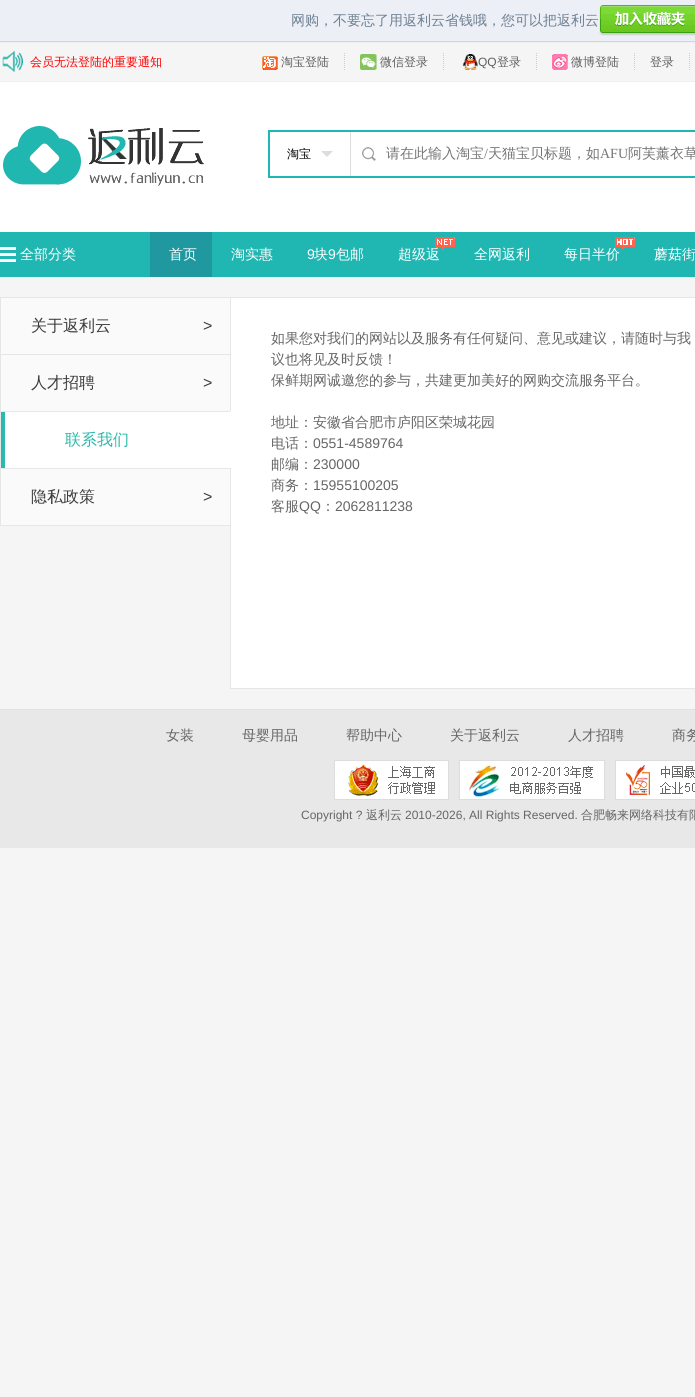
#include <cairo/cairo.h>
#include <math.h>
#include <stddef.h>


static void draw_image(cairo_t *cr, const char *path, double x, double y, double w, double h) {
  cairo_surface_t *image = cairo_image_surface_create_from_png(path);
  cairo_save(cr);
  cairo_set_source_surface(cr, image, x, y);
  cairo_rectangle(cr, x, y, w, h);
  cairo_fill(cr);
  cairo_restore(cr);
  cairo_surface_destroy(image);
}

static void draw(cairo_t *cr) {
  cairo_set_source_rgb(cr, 245 / 255.0, 245 / 255.0, 245 / 255.0);
  cairo_paint(cr);
  cairo_set_source_rgb(cr, 236 / 255.0, 239 / 255.0, 245 / 255.0);
  cairo_rectangle(cr, 0, 0, 695, 41);
  cairo_fill(cr);
  cairo_set_source_rgb(cr, 205 / 255.0, 214 / 255.0, 232 / 255.0);
  cairo_rectangle(cr, 0, 41, 695, 1);
  cairo_fill(cr);
  draw_image(cr, "images/1.png", 599, 5, 96, 31);
  cairo_set_source_rgb(cr, 238 / 255.0, 238 / 255.0, 238 / 255.0);
  cairo_rectangle(cr, 0, 42, 695, 1);
  cairo_fill(cr);
  cairo_rectangle(cr, 0, 81, 695, 1);
  cairo_fill(cr);
  draw_image(cr, "images/2.png", 2, 51, 21, 21);
  draw_image(cr, "images/3.png", 262, 56, 16, 14);
  cairo_new_path(cr);
  cairo_move_to(cr, 344.5, 53);
  cairo_line_to(cr, 344.5, 71);
  cairo_set_source_rgb(cr, 204 / 255.0, 204 / 255.0, 204 / 255.0);
  cairo_set_line_width(cr, 1);
  cairo_set_dash(cr, (double[]){1, 1}, 2, 0);
  cairo_stroke(cr);
  draw_image(cr, "images/4.png", 360, 54, 17, 16);
  cairo_new_path(cr);
  cairo_move_to(cr, 443.5, 53);
  cairo_line_to(cr, 443.5, 71);
  cairo_stroke(cr);
  draw_image(cr, "images/5.png", 462, 54, 16, 16);
  cairo_new_path(cr);
  cairo_move_to(cr, 536.5, 53);
  cairo_line_to(cr, 536.5, 71);
  cairo_stroke(cr);
  draw_image(cr, "images/6.png", 552, 54, 16, 16);
  cairo_new_path(cr);
  cairo_move_to(cr, 634.5, 53);
  cairo_line_to(cr, 634.5, 71);
  cairo_stroke(cr);
  cairo_new_path(cr);
  cairo_move_to(cr, 689.5, 53);
  cairo_line_to(cr, 689.5, 71);
  cairo_stroke(cr);
  cairo_set_source_rgb(cr, 1, 1, 1);
  cairo_rectangle(cr, 0, 82, 695, 150);
  cairo_fill(cr);
  draw_image(cr, "images/7.png", 3, 126, 201, 60);
  cairo_rectangle(cr, 269, 131, 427, 46);
  cairo_set_source_rgb(cr, 32 / 255.0, 182 / 255.0, 177 / 255.0);
  cairo_set_line_width(cr, 2);
  cairo_set_dash(cr, NULL, 0, 0);
  cairo_stroke(cr);
  cairo_set_source_rgb(cr, 221 / 255.0, 221 / 255.0, 221 / 255.0);
  cairo_rectangle(cr, 350, 132, 1, 44);
  cairo_fill(cr);
  cairo_new_path(cr);
  cairo_move_to(cr, 321, 151);
  cairo_line_to(cr, 333, 151);
  cairo_line_to(cr, 327, 157);
  cairo_close_path(cr);
  cairo_fill(cr);
  draw_image(cr, "images/8.png", 362, 147, 14, 14);
  cairo_set_source_rgb(cr, 32 / 255.0, 182 / 255.0, 177 / 255.0);
  cairo_rectangle(cr, 0, 232, 695, 45);
  cairo_fill(cr);
  draw_image(cr, "images/9.png", 0, 247, 16, 15);
  cairo_set_source_rgb(cr, 31 / 255.0, 153 / 255.0, 159 / 255.0);
  cairo_rectangle(cr, 150, 232, 62, 45);
  cairo_fill(cr);
  cairo_rectangle(cr, 230.5, 297.5, 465, 391);
  cairo_set_source_rgb(cr, 230 / 255.0, 230 / 255.0, 230 / 255.0);
  cairo_set_line_width(cr, 1);
  cairo_stroke(cr);
  cairo_set_source_rgb(cr, 250 / 255.0, 250 / 255.0, 250 / 255.0);
  cairo_rectangle(cr, 0.5, 297.5, 230, 57);
  cairo_fill_preserve(cr);
  cairo_set_source_rgb(cr, 230 / 255.0, 230 / 255.0, 230 / 255.0);
  cairo_stroke(cr);
  cairo_set_source_rgb(cr, 250 / 255.0, 250 / 255.0, 250 / 255.0);
  cairo_rectangle(cr, 0.5, 354.5, 230, 57);
  cairo_fill_preserve(cr);
  cairo_set_source_rgb(cr, 230 / 255.0, 230 / 255.0, 230 / 255.0);
  cairo_stroke(cr);
  cairo_set_source_rgb(cr, 1, 1, 1);
  cairo_rectangle(cr, 230, 411, 1, 58);
  cairo_fill(cr);
  cairo_set_source_rgb(cr, 230 / 255.0, 230 / 255.0, 230 / 255.0);
  cairo_rectangle(cr, 0, 411, 1, 58);
  cairo_fill(cr);
  cairo_set_source_rgb(cr, 1, 1, 1);
  cairo_rectangle(cr, 5, 412, 225, 56);
  cairo_fill(cr);
  cairo_set_source_rgb(cr, 45 / 255.0, 184 / 255.0, 173 / 255.0);
  cairo_rectangle(cr, 1, 412, 4, 56);
  cairo_fill(cr);
  cairo_set_source_rgb(cr, 250 / 255.0, 250 / 255.0, 250 / 255.0);
  cairo_rectangle(cr, 0.5, 468.5, 230, 57);
  cairo_fill_preserve(cr);
  cairo_set_source_rgb(cr, 230 / 255.0, 230 / 255.0, 230 / 255.0);
  cairo_stroke(cr);
  cairo_set_source_rgb(cr, 1, 1, 1);
  cairo_rectangle(cr, 231, 298, 464, 390);
  cairo_fill(cr);
  cairo_set_source_rgb(cr, 232 / 255.0, 232 / 255.0, 232 / 255.0);
  cairo_rectangle(cr, 0, 710, 695, 138);
  cairo_fill(cr);
  cairo_set_source_rgb(cr, 226 / 255.0, 226 / 255.0, 226 / 255.0);
  cairo_rectangle(cr, 0, 709, 695, 1);
  cairo_fill(cr);
  draw_image(cr, "images/12.png", 334, 760, 115, 40);
  draw_image(cr, "images/13.png", 459, 760, 146, 40);
  draw_image(cr, "images/14.png", 615, 760, 80, 40);
  cairo_select_font_face(cr, "WenQuanYi Zen Hei Medium", CAIRO_FONT_SLANT_NORMAL, CAIRO_FONT_WEIGHT_NORMAL);
  cairo_set_font_size(cr, 14);
  cairo_set_source_rgb(cr, 111 / 255.0, 129 / 255.0, 147 / 255.0);
  cairo_move_to(cr, 291, 25);
  cairo_show_text(cr, "网购，不要忘了用返利云省钱哦，您可以把返利云");
  cairo_set_font_size(cr, 12);
  cairo_set_source_rgb(cr, 1, 0, 0);
  cairo_move_to(cr, 30, 66);
  cairo_show_text(cr, "会员无法登陆的重要通知");
  cairo_set_source_rgb(cr, 94 / 255.0, 94 / 255.0, 94 / 255.0);
  cairo_move_to(cr, 281, 66);
  cairo_show_text(cr, "淘宝登陆");
  cairo_move_to(cr, 380, 66);
  cairo_show_text(cr, "微信登录");
  cairo_select_font_face(cr, "Liberation Sans", CAIRO_FONT_SLANT_NORMAL, CAIRO_FONT_WEIGHT_NORMAL);
  cairo_move_to(cr, 478, 66);
  cairo_show_text(cr, "QQ");
  cairo_select_font_face(cr, "WenQuanYi Zen Hei Medium", CAIRO_FONT_SLANT_NORMAL, CAIRO_FONT_WEIGHT_NORMAL);
  cairo_move_to(cr, 497, 66);
  cairo_show_text(cr, "登录");
  cairo_move_to(cr, 571, 66);
  cairo_show_text(cr, "微博登陆");
  cairo_move_to(cr, 650, 66);
  cairo_show_text(cr, "登录");
  cairo_set_source_rgb(cr, 0, 0, 0);
  cairo_move_to(cr, 287, 158);
  cairo_show_text(cr, "淘宝");
  cairo_set_font_size(cr, 14);
  cairo_set_source_rgb(cr, 117 / 255.0, 117 / 255.0, 117 / 255.0);
  cairo_move_to(cr, 386, 158);
  cairo_show_text(cr, "请在此输入淘宝");
  cairo_select_font_face(cr, "Liberation Serif", CAIRO_FONT_SLANT_NORMAL, CAIRO_FONT_WEIGHT_NORMAL);
  cairo_move_to(cr, 484, 158);
  cairo_show_text(cr, "/");
  cairo_select_font_face(cr, "WenQuanYi Zen Hei Medium", CAIRO_FONT_SLANT_NORMAL, CAIRO_FONT_WEIGHT_NORMAL);
  cairo_move_to(cr, 488, 158);
  cairo_show_text(cr, "天猫宝贝标题，如");
  cairo_select_font_face(cr, "Liberation Serif", CAIRO_FONT_SLANT_NORMAL, CAIRO_FONT_WEIGHT_NORMAL);
  cairo_move_to(cr, 600, 158);
  cairo_show_text(cr, "AFU");
  cairo_select_font_face(cr, "WenQuanYi Zen Hei Medium", CAIRO_FONT_SLANT_NORMAL, CAIRO_FONT_WEIGHT_NORMAL);
  cairo_move_to(cr, 628, 158);
  cairo_show_text(cr, "阿芙薰衣草");
  cairo_set_source_rgb(cr, 1, 1, 1);
  cairo_move_to(cr, 20, 259);
  cairo_show_text(cr, "全部分类");
  cairo_move_to(cr, 169, 259);
  cairo_show_text(cr, "首页");
  cairo_move_to(cr, 231, 259);
  cairo_show_text(cr, "淘实惠");
  cairo_select_font_face(cr, "Liberation Sans", CAIRO_FONT_SLANT_NORMAL, CAIRO_FONT_WEIGHT_NORMAL);
  cairo_move_to(cr, 307, 259);
  cairo_show_text(cr, "9");
  cairo_select_font_face(cr, "WenQuanYi Zen Hei Medium", CAIRO_FONT_SLANT_NORMAL, CAIRO_FONT_WEIGHT_NORMAL);
  cairo_move_to(cr, 314, 259);
  cairo_show_text(cr, "块");
  cairo_select_font_face(cr, "Liberation Sans", CAIRO_FONT_SLANT_NORMAL, CAIRO_FONT_WEIGHT_NORMAL);
  cairo_move_to(cr, 328, 259);
  cairo_show_text(cr, "9");
  cairo_select_font_face(cr, "WenQuanYi Zen Hei Medium", CAIRO_FONT_SLANT_NORMAL, CAIRO_FONT_WEIGHT_NORMAL);
  cairo_move_to(cr, 336, 259);
  cairo_show_text(cr, "包邮");
  cairo_move_to(cr, 398, 259);
  cairo_show_text(cr, "超级返");
  draw_image(cr, "images/10.png", 435, 237, 20, 13);
  cairo_move_to(cr, 474, 259);
  cairo_show_text(cr, "全网返利");
  cairo_move_to(cr, 564, 259);
  cairo_show_text(cr, "每日半价");
  draw_image(cr, "images/11.png", 615, 237, 20, 13);
  cairo_move_to(cr, 654, 259);
  cairo_show_text(cr, "蘑菇街");
  cairo_set_font_size(cr, 16);
  cairo_set_source_rgb(cr, 60 / 255.0, 60 / 255.0, 60 / 255.0);
  cairo_move_to(cr, 31, 331);
  cairo_show_text(cr, "关于返利云");
  cairo_select_font_face(cr, "Liberation Sans", CAIRO_FONT_SLANT_NORMAL, CAIRO_FONT_WEIGHT_NORMAL);
  cairo_move_to(cr, 203, 331);
  cairo_show_text(cr, ">");
  cairo_select_font_face(cr, "WenQuanYi Zen Hei Medium", CAIRO_FONT_SLANT_NORMAL, CAIRO_FONT_WEIGHT_NORMAL);
  cairo_move_to(cr, 31, 388);
  cairo_show_text(cr, "人才招聘");
  cairo_select_font_face(cr, "Liberation Sans", CAIRO_FONT_SLANT_NORMAL, CAIRO_FONT_WEIGHT_NORMAL);
  cairo_move_to(cr, 203, 388);
  cairo_show_text(cr, ">");
  cairo_select_font_face(cr, "WenQuanYi Zen Hei Medium", CAIRO_FONT_SLANT_NORMAL, CAIRO_FONT_WEIGHT_NORMAL);
  cairo_set_source_rgb(cr, 44 / 255.0, 184 / 255.0, 172 / 255.0);
  cairo_move_to(cr, 65, 445);
  cairo_show_text(cr, "联系我们");
  cairo_set_source_rgb(cr, 60 / 255.0, 60 / 255.0, 60 / 255.0);
  cairo_move_to(cr, 31, 502);
  cairo_show_text(cr, "隐私政策");
  cairo_select_font_face(cr, "Liberation Sans", CAIRO_FONT_SLANT_NORMAL, CAIRO_FONT_WEIGHT_NORMAL);
  cairo_move_to(cr, 203, 502);
  cairo_show_text(cr, ">");
  cairo_select_font_face(cr, "WenQuanYi Zen Hei Medium", CAIRO_FONT_SLANT_NORMAL, CAIRO_FONT_WEIGHT_NORMAL);
  cairo_set_font_size(cr, 14);
  cairo_set_source_rgb(cr, 102 / 255.0, 102 / 255.0, 102 / 255.0);
  cairo_move_to(cr, 271, 343);
  cairo_show_text(cr, "如果您对我们的网站以及服务有任何疑问、意见或建议，请随时与我");
  cairo_move_to(cr, 271, 364);
  cairo_show_text(cr, "议也将见及时反馈！");
  cairo_move_to(cr, 271, 385);
  cairo_show_text(cr, "保鲜期网诚邀您的参与，共建更加美好的网购交流服务平台。");
  cairo_move_to(cr, 271, 427);
  cairo_show_text(cr, "地址：安徽省合肥市庐阳区荣城花园");
  cairo_move_to(cr, 271, 448);
  cairo_show_text(cr, "电话：");
  cairo_select_font_face(cr, "Liberation Sans", CAIRO_FONT_SLANT_NORMAL, CAIRO_FONT_WEIGHT_NORMAL);
  cairo_move_to(cr, 313, 448);
  cairo_show_text(cr, "0551-4589764");
  cairo_select_font_face(cr, "WenQuanYi Zen Hei Medium", CAIRO_FONT_SLANT_NORMAL, CAIRO_FONT_WEIGHT_NORMAL);
  cairo_move_to(cr, 271, 469);
  cairo_show_text(cr, "邮编：");
  cairo_select_font_face(cr, "Liberation Sans", CAIRO_FONT_SLANT_NORMAL, CAIRO_FONT_WEIGHT_NORMAL);
  cairo_move_to(cr, 313, 469);
  cairo_show_text(cr, "230000");
  cairo_select_font_face(cr, "WenQuanYi Zen Hei Medium", CAIRO_FONT_SLANT_NORMAL, CAIRO_FONT_WEIGHT_NORMAL);
  cairo_move_to(cr, 271, 490);
  cairo_show_text(cr, "商务：");
  cairo_select_font_face(cr, "Liberation Sans", CAIRO_FONT_SLANT_NORMAL, CAIRO_FONT_WEIGHT_NORMAL);
  cairo_move_to(cr, 313, 490);
  cairo_show_text(cr, "15955100205");
  cairo_select_font_face(cr, "WenQuanYi Zen Hei Medium", CAIRO_FONT_SLANT_NORMAL, CAIRO_FONT_WEIGHT_NORMAL);
  cairo_move_to(cr, 271, 511);
  cairo_show_text(cr, "客服");
  cairo_select_font_face(cr, "Liberation Sans", CAIRO_FONT_SLANT_NORMAL, CAIRO_FONT_WEIGHT_NORMAL);
  cairo_move_to(cr, 299, 511);
  cairo_show_text(cr, "QQ");
  cairo_select_font_face(cr, "WenQuanYi Zen Hei Medium", CAIRO_FONT_SLANT_NORMAL, CAIRO_FONT_WEIGHT_NORMAL);
  cairo_move_to(cr, 321, 511);
  cairo_show_text(cr, "：");
  cairo_select_font_face(cr, "Liberation Sans", CAIRO_FONT_SLANT_NORMAL, CAIRO_FONT_WEIGHT_NORMAL);
  cairo_move_to(cr, 335, 511);
  cairo_show_text(cr, "2062811238");
  cairo_select_font_face(cr, "WenQuanYi Zen Hei Medium", CAIRO_FONT_SLANT_NORMAL, CAIRO_FONT_WEIGHT_NORMAL);
  cairo_move_to(cr, 166, 740);
  cairo_show_text(cr, "女装");
  cairo_move_to(cr, 242, 740);
  cairo_show_text(cr, "母婴用品");
  cairo_move_to(cr, 346, 740);
  cairo_show_text(cr, "帮助中心");
  cairo_move_to(cr, 450, 740);
  cairo_show_text(cr, "关于返利云");
  cairo_move_to(cr, 568, 740);
  cairo_show_text(cr, "人才招聘");
  cairo_move_to(cr, 672, 740);
  cairo_show_text(cr, "商务");
  cairo_select_font_face(cr, "Liberation Sans", CAIRO_FONT_SLANT_NORMAL, CAIRO_FONT_WEIGHT_NORMAL);
  cairo_set_font_size(cr, 12);
  cairo_move_to(cr, 301, 819);
  cairo_show_text(cr, "Copyright ?");
  cairo_select_font_face(cr, "WenQuanYi Zen Hei Medium", CAIRO_FONT_SLANT_NORMAL, CAIRO_FONT_WEIGHT_NORMAL);
  cairo_move_to(cr, 366, 819);
  cairo_show_text(cr, "返利云");
  cairo_select_font_face(cr, "Liberation Sans", CAIRO_FONT_SLANT_NORMAL, CAIRO_FONT_WEIGHT_NORMAL);
  cairo_move_to(cr, 405, 819);
  cairo_show_text(cr, "2010-2026, All Rights Reserved.");
  cairo_select_font_face(cr, "WenQuanYi Zen Hei Medium", CAIRO_FONT_SLANT_NORMAL, CAIRO_FONT_WEIGHT_NORMAL);
  cairo_move_to(cr, 581, 819);
  cairo_show_text(cr, "合肥畅来网络科技有限");
}

int main(void) {
  cairo_surface_t *surface = cairo_image_surface_create(CAIRO_FORMAT_RGB24, 695, 1397);
  cairo_t *cr = cairo_create(surface);
  cairo_font_options_t *options = cairo_font_options_create();
  cairo_font_options_set_hint_metrics(options, CAIRO_HINT_METRICS_OFF);
  cairo_font_options_set_hint_style(options, CAIRO_HINT_STYLE_NONE);
  cairo_set_font_options(cr, options);
  cairo_set_miter_limit(cr, 4);
  draw(cr);
  cairo_surface_write_to_png(surface, "out.png");
  cairo_font_options_destroy(options);
  cairo_destroy(cr);
  cairo_surface_destroy(surface);
  return 0;
}
